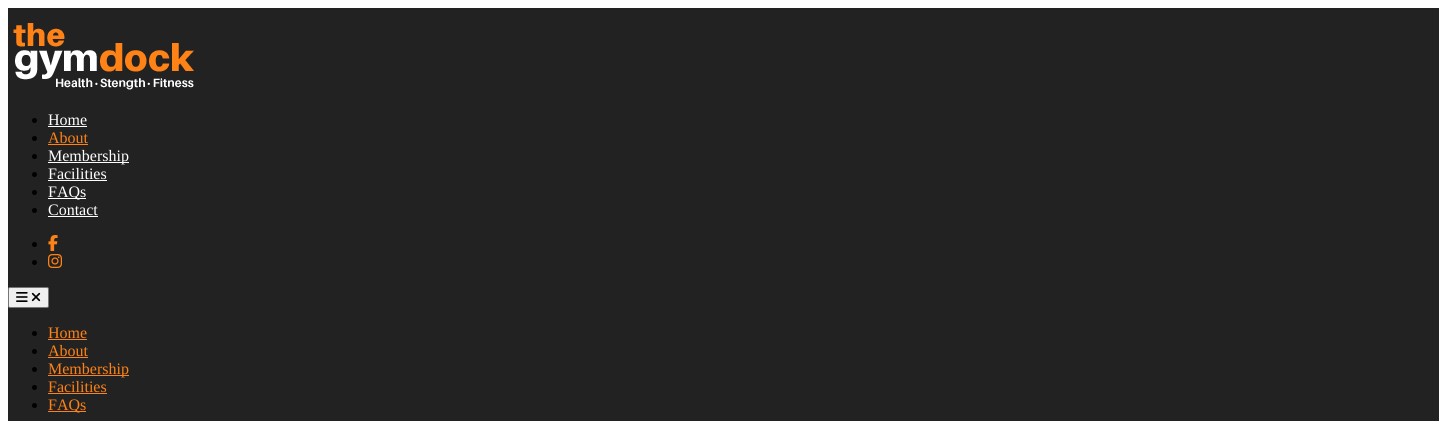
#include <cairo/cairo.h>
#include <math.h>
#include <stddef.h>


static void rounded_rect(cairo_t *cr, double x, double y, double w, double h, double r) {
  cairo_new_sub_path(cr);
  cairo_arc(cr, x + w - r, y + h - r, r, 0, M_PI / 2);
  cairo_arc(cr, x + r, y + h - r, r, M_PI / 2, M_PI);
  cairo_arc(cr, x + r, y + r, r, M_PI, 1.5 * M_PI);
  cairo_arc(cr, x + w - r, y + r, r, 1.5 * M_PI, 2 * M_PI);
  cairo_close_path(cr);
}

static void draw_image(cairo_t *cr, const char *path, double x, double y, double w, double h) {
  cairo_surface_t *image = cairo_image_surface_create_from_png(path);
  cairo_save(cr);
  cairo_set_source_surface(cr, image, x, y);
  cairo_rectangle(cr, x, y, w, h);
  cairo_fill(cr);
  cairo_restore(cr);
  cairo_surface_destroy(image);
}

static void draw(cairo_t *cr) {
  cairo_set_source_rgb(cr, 1, 1, 1);
  cairo_paint(cr);
  cairo_set_source_rgb(cr, 34 / 255.0, 34 / 255.0, 34 / 255.0);
  cairo_rectangle(cr, 8, 8, 1431, 413);
  cairo_fill(cr);
  draw_image(cr, "images/1.png", 13, 23, 181, 67);
  cairo_set_source_rgb(cr, 0, 0, 0);
  cairo_arc(cr, 34.5, 120.5, 2.5, 0, 2 * M_PI);
  cairo_fill(cr);
  cairo_set_source_rgb(cr, 1, 1, 1);
  cairo_rectangle(cr, 48, 126, 39, 1);
  cairo_fill(cr);
  cairo_set_source_rgb(cr, 0, 0, 0);
  cairo_arc(cr, 34.5, 138.5, 2.5, 0, 2 * M_PI);
  cairo_fill(cr);
  cairo_set_source_rgb(cr, 1, 130 / 255.0, 22 / 255.0);
  cairo_rectangle(cr, 48, 144, 40, 1);
  cairo_fill(cr);
  cairo_set_source_rgb(cr, 0, 0, 0);
  cairo_arc(cr, 34.5, 156.5, 2.5, 0, 2 * M_PI);
  cairo_fill(cr);
  cairo_set_source_rgb(cr, 1, 1, 1);
  cairo_rectangle(cr, 48, 162, 81, 1);
  cairo_fill(cr);
  cairo_set_source_rgb(cr, 0, 0, 0);
  cairo_arc(cr, 34.5, 174.5, 2.5, 0, 2 * M_PI);
  cairo_fill(cr);
  cairo_set_source_rgb(cr, 1, 1, 1);
  cairo_rectangle(cr, 48, 180, 59, 1);
  cairo_fill(cr);
  cairo_set_source_rgb(cr, 0, 0, 0);
  cairo_arc(cr, 34.5, 192.5, 2.5, 0, 2 * M_PI);
  cairo_fill(cr);
  cairo_set_source_rgb(cr, 1, 1, 1);
  cairo_rectangle(cr, 48, 198, 38, 1);
  cairo_fill(cr);
  cairo_set_source_rgb(cr, 0, 0, 0);
  cairo_arc(cr, 34.5, 210.5, 2.5, 0, 2 * M_PI);
  cairo_fill(cr);
  cairo_set_source_rgb(cr, 1, 1, 1);
  cairo_rectangle(cr, 48, 216, 50, 1);
  cairo_fill(cr);
  cairo_set_source_rgb(cr, 0, 0, 0);
  cairo_arc(cr, 34.5, 244.5, 2.5, 0, 2 * M_PI);
  cairo_fill(cr);
  draw_image(cr, "images/2.png", 48, 235, 10, 16);
  cairo_arc(cr, 34.5, 262.5, 2.5, 0, 2 * M_PI);
  cairo_fill(cr);
  draw_image(cr, "images/3.png", 48, 254, 14, 14);
  cairo_set_source_rgb(cr, 239 / 255.0, 239 / 255.0, 239 / 255.0);
  rounded_rect(cr, 8.5, 287.5, 40, 20, 1.5);
  cairo_fill_preserve(cr);
  cairo_set_source_rgb(cr, 118 / 255.0, 118 / 255.0, 118 / 255.0);
  cairo_set_line_width(cr, 1);
  cairo_stroke(cr);
  draw_image(cr, "images/4.png", 16, 292, 12, 10);
  draw_image(cr, "images/5.png", 31, 292, 10, 10);
  cairo_set_source_rgb(cr, 0, 0, 0);
  cairo_arc(cr, 34.5, 333.5, 2.5, 0, 2 * M_PI);
  cairo_fill(cr);
  cairo_set_source_rgb(cr, 1, 130 / 255.0, 22 / 255.0);
  cairo_rectangle(cr, 48, 339, 39, 1);
  cairo_fill(cr);
  cairo_set_source_rgb(cr, 0, 0, 0);
  cairo_arc(cr, 34.5, 351.5, 2.5, 0, 2 * M_PI);
  cairo_fill(cr);
  cairo_set_source_rgb(cr, 1, 130 / 255.0, 22 / 255.0);
  cairo_rectangle(cr, 48, 357, 40, 1);
  cairo_fill(cr);
  cairo_set_source_rgb(cr, 0, 0, 0);
  cairo_arc(cr, 34.5, 369.5, 2.5, 0, 2 * M_PI);
  cairo_fill(cr);
  cairo_set_source_rgb(cr, 1, 130 / 255.0, 22 / 255.0);
  cairo_rectangle(cr, 48, 375, 81, 1);
  cairo_fill(cr);
  cairo_set_source_rgb(cr, 0, 0, 0);
  cairo_arc(cr, 34.5, 387.5, 2.5, 0, 2 * M_PI);
  cairo_fill(cr);
  cairo_set_source_rgb(cr, 1, 130 / 255.0, 22 / 255.0);
  cairo_rectangle(cr, 48, 393, 59, 1);
  cairo_fill(cr);
  cairo_set_source_rgb(cr, 0, 0, 0);
  cairo_arc(cr, 34.5, 405.5, 2.5, 0, 2 * M_PI);
  cairo_fill(cr);
  cairo_set_source_rgb(cr, 1, 130 / 255.0, 22 / 255.0);
  cairo_rectangle(cr, 48, 411, 38, 1);
  cairo_fill(cr);
  cairo_select_font_face(cr, "Liberation Serif", CAIRO_FONT_SLANT_NORMAL, CAIRO_FONT_WEIGHT_NORMAL);
  cairo_set_font_size(cr, 16);
  cairo_set_source_rgb(cr, 1, 1, 1);
  cairo_move_to(cr, 48, 125);
  cairo_show_text(cr, "Home");
  cairo_set_source_rgb(cr, 1, 130 / 255.0, 22 / 255.0);
  cairo_move_to(cr, 48, 143);
  cairo_show_text(cr, "About");
  cairo_set_source_rgb(cr, 1, 1, 1);
  cairo_move_to(cr, 48, 161);
  cairo_show_text(cr, "Membership");
  cairo_move_to(cr, 48, 179);
  cairo_show_text(cr, "Facilities");
  cairo_move_to(cr, 48, 197);
  cairo_show_text(cr, "FAQs");
  cairo_move_to(cr, 48, 215);
  cairo_show_text(cr, "Contact");
  cairo_set_source_rgb(cr, 1, 130 / 255.0, 22 / 255.0);
  cairo_move_to(cr, 48, 338);
  cairo_show_text(cr, "Home");
  cairo_move_to(cr, 48, 356);
  cairo_show_text(cr, "About");
  cairo_move_to(cr, 48, 374);
  cairo_show_text(cr, "Membership");
  cairo_move_to(cr, 48, 392);
  cairo_show_text(cr, "Facilities");
  cairo_move_to(cr, 48, 410);
  cairo_show_text(cr, "FAQs");
}

int main(void) {
  cairo_surface_t *surface = cairo_image_surface_create(CAIRO_FORMAT_RGB24, 1447, 421);
  cairo_t *cr = cairo_create(surface);
  cairo_font_options_t *options = cairo_font_options_create();
  cairo_font_options_set_hint_metrics(options, CAIRO_HINT_METRICS_OFF);
  cairo_font_options_set_hint_style(options, CAIRO_HINT_STYLE_NONE);
  cairo_set_font_options(cr, options);
  cairo_set_miter_limit(cr, 4);
  draw(cr);
  cairo_surface_write_to_png(surface, "out.png");
  cairo_font_options_destroy(options);
  cairo_destroy(cr);
  cairo_surface_destroy(surface);
  return 0;
}
